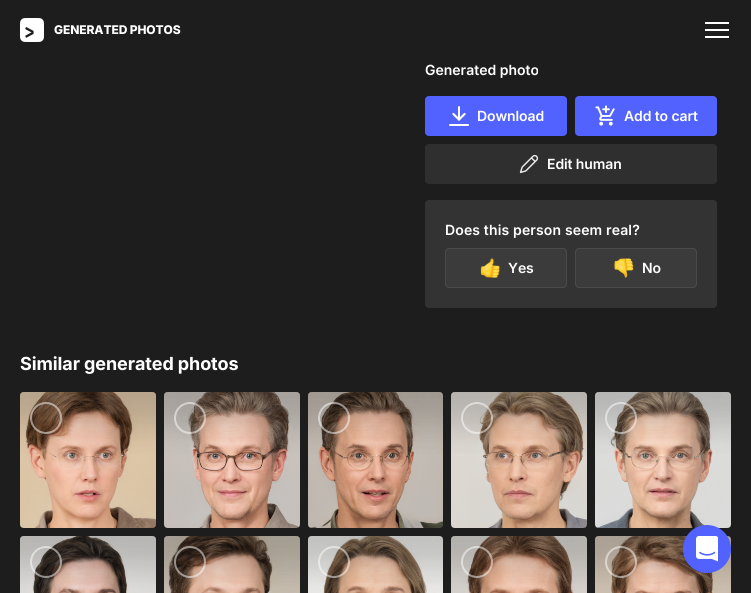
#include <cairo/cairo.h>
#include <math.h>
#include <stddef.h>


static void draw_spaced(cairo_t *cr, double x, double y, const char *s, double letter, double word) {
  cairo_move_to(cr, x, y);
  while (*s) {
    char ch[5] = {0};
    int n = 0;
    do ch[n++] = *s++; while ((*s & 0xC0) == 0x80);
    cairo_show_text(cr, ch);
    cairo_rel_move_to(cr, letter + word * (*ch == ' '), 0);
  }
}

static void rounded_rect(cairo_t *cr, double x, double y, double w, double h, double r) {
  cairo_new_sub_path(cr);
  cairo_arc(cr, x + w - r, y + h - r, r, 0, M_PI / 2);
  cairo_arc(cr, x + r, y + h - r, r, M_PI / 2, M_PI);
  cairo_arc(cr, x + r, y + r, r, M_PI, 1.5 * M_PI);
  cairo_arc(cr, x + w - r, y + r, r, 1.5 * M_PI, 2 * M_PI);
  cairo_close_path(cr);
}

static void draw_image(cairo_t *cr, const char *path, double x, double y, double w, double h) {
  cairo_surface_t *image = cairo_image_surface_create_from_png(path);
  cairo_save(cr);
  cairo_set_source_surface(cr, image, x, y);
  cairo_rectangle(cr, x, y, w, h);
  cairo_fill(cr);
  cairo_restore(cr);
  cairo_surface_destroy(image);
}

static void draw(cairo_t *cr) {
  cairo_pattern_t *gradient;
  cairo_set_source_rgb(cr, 29 / 255.0, 29 / 255.0, 29 / 255.0);
  cairo_paint(cr);
  draw_image(cr, "images/1.png", 20, 18, 24, 24);
  cairo_set_source_rgb(cr, 1, 1, 1);
  cairo_rectangle(cr, 705, 22, 24, 2);
  cairo_fill(cr);
  cairo_rectangle(cr, 705, 29, 24, 2);
  cairo_fill(cr);
  cairo_rectangle(cr, 705, 36, 24, 2);
  cairo_fill(cr);
  cairo_set_source_rgb(cr, 81 / 255.0, 98 / 255.0, 1);
  rounded_rect(cr, 425.5, 96.5, 141, 39, 3.5);
  cairo_fill_preserve(cr);
  cairo_set_line_width(cr, 1);
  cairo_stroke(cr);
  draw_image(cr, "images/2.png", 449, 106, 20, 20);
  rounded_rect(cr, 575.5, 96.5, 141, 39, 3.5);
  cairo_fill_preserve(cr);
  cairo_stroke(cr);
  draw_image(cr, "images/3.png", 595, 105, 20, 21);
  cairo_set_source_rgb(cr, 47 / 255.0, 47 / 255.0, 47 / 255.0);
  rounded_rect(cr, 425, 144, 292, 40, 4);
  cairo_fill(cr);
  draw_image(cr, "images/4.png", 519, 154, 20, 20);
  cairo_set_source_rgb(cr, 51 / 255.0, 51 / 255.0, 51 / 255.0);
  rounded_rect(cr, 425, 200, 292, 108, 4);
  cairo_fill(cr);
  cairo_set_source_rgb(cr, 59 / 255.0, 59 / 255.0, 59 / 255.0);
  rounded_rect(cr, 445, 248, 122, 40, 4);
  cairo_fill(cr);
  rounded_rect(cr, 445.5, 248.5, 121, 39, 3.5);
  cairo_set_source_rgba(cr, 1, 1, 1, 0.08);
  cairo_stroke(cr);
  draw_image(cr, "images/5.png", 480, 258, 21, 20);
  cairo_set_source_rgb(cr, 59 / 255.0, 59 / 255.0, 59 / 255.0);
  rounded_rect(cr, 575, 248, 122, 40, 4);
  cairo_fill(cr);
  rounded_rect(cr, 575.5, 248.5, 121, 39, 3.5);
  cairo_set_source_rgba(cr, 1, 1, 1, 0.08);
  cairo_stroke(cr);
  draw_image(cr, "images/6.png", 614, 258, 20, 20);
  draw_image(cr, "images/7.png", 20, 392, 136, 136);
  gradient = cairo_pattern_create_linear(88, 392, 88, 460);
  cairo_pattern_add_color_stop_rgba(gradient, 0, 29 / 255.0, 29 / 255.0, 29 / 255.0, 0.2);
  cairo_pattern_add_color_stop_rgba(gradient, 0.07, 29 / 255.0, 29 / 255.0, 29 / 255.0, 0.2);
  cairo_pattern_add_color_stop_rgba(gradient, 0.13, 29 / 255.0, 29 / 255.0, 29 / 255.0, 0.19);
  cairo_pattern_add_color_stop_rgba(gradient, 0.2, 29 / 255.0, 29 / 255.0, 29 / 255.0, 0.18);
  cairo_pattern_add_color_stop_rgba(gradient, 0.27, 29 / 255.0, 29 / 255.0, 29 / 255.0, 0.17);
  cairo_pattern_add_color_stop_rgba(gradient, 0.33, 29 / 255.0, 29 / 255.0, 29 / 255.0, 0.15);
  cairo_pattern_add_color_stop_rgba(gradient, 0.4, 29 / 255.0, 29 / 255.0, 29 / 255.0, 0.13);
  cairo_pattern_add_color_stop_rgba(gradient, 0.47, 29 / 255.0, 29 / 255.0, 29 / 255.0, 0.11);
  cairo_pattern_add_color_stop_rgba(gradient, 0.53, 29 / 255.0, 29 / 255.0, 29 / 255.0, 0.09);
  cairo_pattern_add_color_stop_rgba(gradient, 0.6, 29 / 255.0, 29 / 255.0, 29 / 255.0, 0.07);
  cairo_pattern_add_color_stop_rgba(gradient, 0.67, 29 / 255.0, 29 / 255.0, 29 / 255.0, 0.05);
  cairo_pattern_add_color_stop_rgba(gradient, 0.73, 29 / 255.0, 29 / 255.0, 29 / 255.0, 0.03);
  cairo_pattern_add_color_stop_rgba(gradient, 0.8, 29 / 255.0, 29 / 255.0, 29 / 255.0, 0.02);
  cairo_pattern_add_color_stop_rgba(gradient, 0.87, 29 / 255.0, 29 / 255.0, 29 / 255.0, 0.01);
  cairo_pattern_add_color_stop_rgba(gradient, 0.93, 29 / 255.0, 29 / 255.0, 29 / 255.0, 0);
  cairo_pattern_add_color_stop_rgba(gradient, 1, 29 / 255.0, 29 / 255.0, 29 / 255.0, 0);
  cairo_set_source(cr, gradient);
  cairo_pattern_destroy(gradient);
  cairo_new_path(cr);
  cairo_move_to(cr, 24, 392);
  cairo_line_to(cr, 152, 392);
  cairo_curve_to(cr, 154, 392, 156, 394, 156, 396);
  cairo_line_to(cr, 156, 460);
  cairo_line_to(cr, 20, 460);
  cairo_line_to(cr, 20, 396);
  cairo_curve_to(cr, 20, 394, 22, 392, 24, 392);
  cairo_close_path(cr);
  cairo_fill(cr);
  cairo_arc(cr, 46, 418, 15, 0, 2 * M_PI);
  cairo_set_source_rgba(cr, 1, 1, 1, 0.5);
  cairo_set_line_width(cr, 2);
  cairo_stroke(cr);
  draw_image(cr, "images/8.png", 164, 392, 136, 136);
  gradient = cairo_pattern_create_linear(232, 392, 232, 460);
  cairo_pattern_add_color_stop_rgba(gradient, 0, 29 / 255.0, 29 / 255.0, 29 / 255.0, 0.2);
  cairo_pattern_add_color_stop_rgba(gradient, 0.07, 29 / 255.0, 29 / 255.0, 29 / 255.0, 0.2);
  cairo_pattern_add_color_stop_rgba(gradient, 0.13, 29 / 255.0, 29 / 255.0, 29 / 255.0, 0.19);
  cairo_pattern_add_color_stop_rgba(gradient, 0.2, 29 / 255.0, 29 / 255.0, 29 / 255.0, 0.18);
  cairo_pattern_add_color_stop_rgba(gradient, 0.27, 29 / 255.0, 29 / 255.0, 29 / 255.0, 0.17);
  cairo_pattern_add_color_stop_rgba(gradient, 0.33, 29 / 255.0, 29 / 255.0, 29 / 255.0, 0.15);
  cairo_pattern_add_color_stop_rgba(gradient, 0.4, 29 / 255.0, 29 / 255.0, 29 / 255.0, 0.13);
  cairo_pattern_add_color_stop_rgba(gradient, 0.47, 29 / 255.0, 29 / 255.0, 29 / 255.0, 0.11);
  cairo_pattern_add_color_stop_rgba(gradient, 0.53, 29 / 255.0, 29 / 255.0, 29 / 255.0, 0.09);
  cairo_pattern_add_color_stop_rgba(gradient, 0.6, 29 / 255.0, 29 / 255.0, 29 / 255.0, 0.07);
  cairo_pattern_add_color_stop_rgba(gradient, 0.67, 29 / 255.0, 29 / 255.0, 29 / 255.0, 0.05);
  cairo_pattern_add_color_stop_rgba(gradient, 0.73, 29 / 255.0, 29 / 255.0, 29 / 255.0, 0.03);
  cairo_pattern_add_color_stop_rgba(gradient, 0.8, 29 / 255.0, 29 / 255.0, 29 / 255.0, 0.02);
  cairo_pattern_add_color_stop_rgba(gradient, 0.87, 29 / 255.0, 29 / 255.0, 29 / 255.0, 0.01);
  cairo_pattern_add_color_stop_rgba(gradient, 0.93, 29 / 255.0, 29 / 255.0, 29 / 255.0, 0);
  cairo_pattern_add_color_stop_rgba(gradient, 1, 29 / 255.0, 29 / 255.0, 29 / 255.0, 0);
  cairo_set_source(cr, gradient);
  cairo_pattern_destroy(gradient);
  cairo_new_path(cr);
  cairo_move_to(cr, 168, 392);
  cairo_line_to(cr, 296, 392);
  cairo_curve_to(cr, 298, 392, 300, 394, 300, 396);
  cairo_line_to(cr, 300, 460);
  cairo_line_to(cr, 164, 460);
  cairo_line_to(cr, 164, 396);
  cairo_curve_to(cr, 164, 394, 166, 392, 168, 392);
  cairo_close_path(cr);
  cairo_fill(cr);
  cairo_arc(cr, 190, 418, 15, 0, 2 * M_PI);
  cairo_set_source_rgba(cr, 1, 1, 1, 0.5);
  cairo_stroke(cr);
  draw_image(cr, "images/9.png", 308, 392, 135, 136);
  gradient = cairo_pattern_create_linear(376, 392, 376, 460);
  cairo_pattern_add_color_stop_rgba(gradient, 0, 29 / 255.0, 29 / 255.0, 29 / 255.0, 0.2);
  cairo_pattern_add_color_stop_rgba(gradient, 0.07, 29 / 255.0, 29 / 255.0, 29 / 255.0, 0.2);
  cairo_pattern_add_color_stop_rgba(gradient, 0.13, 29 / 255.0, 29 / 255.0, 29 / 255.0, 0.19);
  cairo_pattern_add_color_stop_rgba(gradient, 0.2, 29 / 255.0, 29 / 255.0, 29 / 255.0, 0.18);
  cairo_pattern_add_color_stop_rgba(gradient, 0.27, 29 / 255.0, 29 / 255.0, 29 / 255.0, 0.17);
  cairo_pattern_add_color_stop_rgba(gradient, 0.33, 29 / 255.0, 29 / 255.0, 29 / 255.0, 0.15);
  cairo_pattern_add_color_stop_rgba(gradient, 0.4, 29 / 255.0, 29 / 255.0, 29 / 255.0, 0.13);
  cairo_pattern_add_color_stop_rgba(gradient, 0.47, 29 / 255.0, 29 / 255.0, 29 / 255.0, 0.11);
  cairo_pattern_add_color_stop_rgba(gradient, 0.53, 29 / 255.0, 29 / 255.0, 29 / 255.0, 0.09);
  cairo_pattern_add_color_stop_rgba(gradient, 0.6, 29 / 255.0, 29 / 255.0, 29 / 255.0, 0.07);
  cairo_pattern_add_color_stop_rgba(gradient, 0.67, 29 / 255.0, 29 / 255.0, 29 / 255.0, 0.05);
  cairo_pattern_add_color_stop_rgba(gradient, 0.73, 29 / 255.0, 29 / 255.0, 29 / 255.0, 0.03);
  cairo_pattern_add_color_stop_rgba(gradient, 0.8, 29 / 255.0, 29 / 255.0, 29 / 255.0, 0.02);
  cairo_pattern_add_color_stop_rgba(gradient, 0.87, 29 / 255.0, 29 / 255.0, 29 / 255.0, 0.01);
  cairo_pattern_add_color_stop_rgba(gradient, 0.93, 29 / 255.0, 29 / 255.0, 29 / 255.0, 0);
  cairo_pattern_add_color_stop_rgba(gradient, 1, 29 / 255.0, 29 / 255.0, 29 / 255.0, 0);
  cairo_set_source(cr, gradient);
  cairo_pattern_destroy(gradient);
  cairo_new_path(cr);
  cairo_move_to(cr, 312, 392);
  cairo_line_to(cr, 439, 392);
  cairo_curve_to(cr, 441, 392, 443, 394, 443, 396);
  cairo_line_to(cr, 443, 460);
  cairo_line_to(cr, 308, 460);
  cairo_line_to(cr, 308, 396);
  cairo_curve_to(cr, 308, 394, 310, 392, 312, 392);
  cairo_close_path(cr);
  cairo_fill(cr);
  cairo_arc(cr, 334, 418, 15, 0, 2 * M_PI);
  cairo_set_source_rgba(cr, 1, 1, 1, 0.5);
  cairo_stroke(cr);
  draw_image(cr, "images/10.png", 451, 392, 136, 136);
  gradient = cairo_pattern_create_linear(519, 392, 519, 460);
  cairo_pattern_add_color_stop_rgba(gradient, 0, 29 / 255.0, 29 / 255.0, 29 / 255.0, 0.2);
  cairo_pattern_add_color_stop_rgba(gradient, 0.07, 29 / 255.0, 29 / 255.0, 29 / 255.0, 0.2);
  cairo_pattern_add_color_stop_rgba(gradient, 0.13, 29 / 255.0, 29 / 255.0, 29 / 255.0, 0.19);
  cairo_pattern_add_color_stop_rgba(gradient, 0.2, 29 / 255.0, 29 / 255.0, 29 / 255.0, 0.18);
  cairo_pattern_add_color_stop_rgba(gradient, 0.27, 29 / 255.0, 29 / 255.0, 29 / 255.0, 0.17);
  cairo_pattern_add_color_stop_rgba(gradient, 0.33, 29 / 255.0, 29 / 255.0, 29 / 255.0, 0.15);
  cairo_pattern_add_color_stop_rgba(gradient, 0.4, 29 / 255.0, 29 / 255.0, 29 / 255.0, 0.13);
  cairo_pattern_add_color_stop_rgba(gradient, 0.47, 29 / 255.0, 29 / 255.0, 29 / 255.0, 0.11);
  cairo_pattern_add_color_stop_rgba(gradient, 0.53, 29 / 255.0, 29 / 255.0, 29 / 255.0, 0.09);
  cairo_pattern_add_color_stop_rgba(gradient, 0.6, 29 / 255.0, 29 / 255.0, 29 / 255.0, 0.07);
  cairo_pattern_add_color_stop_rgba(gradient, 0.67, 29 / 255.0, 29 / 255.0, 29 / 255.0, 0.05);
  cairo_pattern_add_color_stop_rgba(gradient, 0.73, 29 / 255.0, 29 / 255.0, 29 / 255.0, 0.03);
  cairo_pattern_add_color_stop_rgba(gradient, 0.8, 29 / 255.0, 29 / 255.0, 29 / 255.0, 0.02);
  cairo_pattern_add_color_stop_rgba(gradient, 0.87, 29 / 255.0, 29 / 255.0, 29 / 255.0, 0.01);
  cairo_pattern_add_color_stop_rgba(gradient, 0.93, 29 / 255.0, 29 / 255.0, 29 / 255.0, 0);
  cairo_pattern_add_color_stop_rgba(gradient, 1, 29 / 255.0, 29 / 255.0, 29 / 255.0, 0);
  cairo_set_source(cr, gradient);
  cairo_pattern_destroy(gradient);
  cairo_new_path(cr);
  cairo_move_to(cr, 455, 392);
  cairo_line_to(cr, 583, 392);
  cairo_curve_to(cr, 585, 392, 587, 394, 587, 396);
  cairo_line_to(cr, 587, 460);
  cairo_line_to(cr, 451, 460);
  cairo_line_to(cr, 451, 396);
  cairo_curve_to(cr, 451, 394, 453, 392, 455, 392);
  cairo_close_path(cr);
  cairo_fill(cr);
  cairo_arc(cr, 477, 418, 15, 0, 2 * M_PI);
  cairo_set_source_rgba(cr, 1, 1, 1, 0.5);
  cairo_stroke(cr);
  draw_image(cr, "images/11.png", 595, 392, 136, 136);
  gradient = cairo_pattern_create_linear(663, 392, 663, 460);
  cairo_pattern_add_color_stop_rgba(gradient, 0, 29 / 255.0, 29 / 255.0, 29 / 255.0, 0.2);
  cairo_pattern_add_color_stop_rgba(gradient, 0.07, 29 / 255.0, 29 / 255.0, 29 / 255.0, 0.2);
  cairo_pattern_add_color_stop_rgba(gradient, 0.13, 29 / 255.0, 29 / 255.0, 29 / 255.0, 0.19);
  cairo_pattern_add_color_stop_rgba(gradient, 0.2, 29 / 255.0, 29 / 255.0, 29 / 255.0, 0.18);
  cairo_pattern_add_color_stop_rgba(gradient, 0.27, 29 / 255.0, 29 / 255.0, 29 / 255.0, 0.17);
  cairo_pattern_add_color_stop_rgba(gradient, 0.33, 29 / 255.0, 29 / 255.0, 29 / 255.0, 0.15);
  cairo_pattern_add_color_stop_rgba(gradient, 0.4, 29 / 255.0, 29 / 255.0, 29 / 255.0, 0.13);
  cairo_pattern_add_color_stop_rgba(gradient, 0.47, 29 / 255.0, 29 / 255.0, 29 / 255.0, 0.11);
  cairo_pattern_add_color_stop_rgba(gradient, 0.53, 29 / 255.0, 29 / 255.0, 29 / 255.0, 0.09);
  cairo_pattern_add_color_stop_rgba(gradient, 0.6, 29 / 255.0, 29 / 255.0, 29 / 255.0, 0.07);
  cairo_pattern_add_color_stop_rgba(gradient, 0.67, 29 / 255.0, 29 / 255.0, 29 / 255.0, 0.05);
  cairo_pattern_add_color_stop_rgba(gradient, 0.73, 29 / 255.0, 29 / 255.0, 29 / 255.0, 0.03);
  cairo_pattern_add_color_stop_rgba(gradient, 0.8, 29 / 255.0, 29 / 255.0, 29 / 255.0, 0.02);
  cairo_pattern_add_color_stop_rgba(gradient, 0.87, 29 / 255.0, 29 / 255.0, 29 / 255.0, 0.01);
  cairo_pattern_add_color_stop_rgba(gradient, 0.93, 29 / 255.0, 29 / 255.0, 29 / 255.0, 0);
  cairo_pattern_add_color_stop_rgba(gradient, 1, 29 / 255.0, 29 / 255.0, 29 / 255.0, 0);
  cairo_set_source(cr, gradient);
  cairo_pattern_destroy(gradient);
  cairo_new_path(cr);
  cairo_move_to(cr, 599, 392);
  cairo_line_to(cr, 727, 392);
  cairo_curve_to(cr, 729, 392, 731, 394, 731, 396);
  cairo_line_to(cr, 731, 460);
  cairo_line_to(cr, 595, 460);
  cairo_line_to(cr, 595, 396);
  cairo_curve_to(cr, 595, 394, 597, 392, 599, 392);
  cairo_close_path(cr);
  cairo_fill(cr);
  cairo_arc(cr, 621, 418, 15, 0, 2 * M_PI);
  cairo_set_source_rgba(cr, 1, 1, 1, 0.5);
  cairo_stroke(cr);
  draw_image(cr, "images/12.png", 20, 536, 136, 57);
  gradient = cairo_pattern_create_linear(88, 536, 88, 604);
  cairo_pattern_add_color_stop_rgba(gradient, 0, 29 / 255.0, 29 / 255.0, 29 / 255.0, 0.2);
  cairo_pattern_add_color_stop_rgba(gradient, 0.07, 29 / 255.0, 29 / 255.0, 29 / 255.0, 0.2);
  cairo_pattern_add_color_stop_rgba(gradient, 0.13, 29 / 255.0, 29 / 255.0, 29 / 255.0, 0.19);
  cairo_pattern_add_color_stop_rgba(gradient, 0.2, 29 / 255.0, 29 / 255.0, 29 / 255.0, 0.18);
  cairo_pattern_add_color_stop_rgba(gradient, 0.27, 29 / 255.0, 29 / 255.0, 29 / 255.0, 0.17);
  cairo_pattern_add_color_stop_rgba(gradient, 0.33, 29 / 255.0, 29 / 255.0, 29 / 255.0, 0.15);
  cairo_pattern_add_color_stop_rgba(gradient, 0.4, 29 / 255.0, 29 / 255.0, 29 / 255.0, 0.13);
  cairo_pattern_add_color_stop_rgba(gradient, 0.47, 29 / 255.0, 29 / 255.0, 29 / 255.0, 0.11);
  cairo_pattern_add_color_stop_rgba(gradient, 0.53, 29 / 255.0, 29 / 255.0, 29 / 255.0, 0.09);
  cairo_pattern_add_color_stop_rgba(gradient, 0.6, 29 / 255.0, 29 / 255.0, 29 / 255.0, 0.07);
  cairo_pattern_add_color_stop_rgba(gradient, 0.67, 29 / 255.0, 29 / 255.0, 29 / 255.0, 0.05);
  cairo_pattern_add_color_stop_rgba(gradient, 0.73, 29 / 255.0, 29 / 255.0, 29 / 255.0, 0.03);
  cairo_pattern_add_color_stop_rgba(gradient, 0.8, 29 / 255.0, 29 / 255.0, 29 / 255.0, 0.02);
  cairo_pattern_add_color_stop_rgba(gradient, 0.87, 29 / 255.0, 29 / 255.0, 29 / 255.0, 0.01);
  cairo_pattern_add_color_stop_rgba(gradient, 0.93, 29 / 255.0, 29 / 255.0, 29 / 255.0, 0);
  cairo_pattern_add_color_stop_rgba(gradient, 1, 29 / 255.0, 29 / 255.0, 29 / 255.0, 0);
  cairo_set_source(cr, gradient);
  cairo_pattern_destroy(gradient);
  cairo_new_path(cr);
  cairo_move_to(cr, 24, 536);
  cairo_line_to(cr, 152, 536);
  cairo_curve_to(cr, 154, 536, 156, 538, 156, 540);
  cairo_line_to(cr, 156, 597);
  cairo_line_to(cr, 20, 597);
  cairo_line_to(cr, 20, 540);
  cairo_curve_to(cr, 20, 538, 22, 536, 24, 536);
  cairo_close_path(cr);
  cairo_fill(cr);
  cairo_arc(cr, 46, 562, 15, 0, 2 * M_PI);
  cairo_set_source_rgba(cr, 1, 1, 1, 0.5);
  cairo_stroke(cr);
  draw_image(cr, "images/13.png", 164, 536, 136, 57);
  gradient = cairo_pattern_create_linear(232, 536, 232, 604);
  cairo_pattern_add_color_stop_rgba(gradient, 0, 29 / 255.0, 29 / 255.0, 29 / 255.0, 0.2);
  cairo_pattern_add_color_stop_rgba(gradient, 0.07, 29 / 255.0, 29 / 255.0, 29 / 255.0, 0.2);
  cairo_pattern_add_color_stop_rgba(gradient, 0.13, 29 / 255.0, 29 / 255.0, 29 / 255.0, 0.19);
  cairo_pattern_add_color_stop_rgba(gradient, 0.2, 29 / 255.0, 29 / 255.0, 29 / 255.0, 0.18);
  cairo_pattern_add_color_stop_rgba(gradient, 0.27, 29 / 255.0, 29 / 255.0, 29 / 255.0, 0.17);
  cairo_pattern_add_color_stop_rgba(gradient, 0.33, 29 / 255.0, 29 / 255.0, 29 / 255.0, 0.15);
  cairo_pattern_add_color_stop_rgba(gradient, 0.4, 29 / 255.0, 29 / 255.0, 29 / 255.0, 0.13);
  cairo_pattern_add_color_stop_rgba(gradient, 0.47, 29 / 255.0, 29 / 255.0, 29 / 255.0, 0.11);
  cairo_pattern_add_color_stop_rgba(gradient, 0.53, 29 / 255.0, 29 / 255.0, 29 / 255.0, 0.09);
  cairo_pattern_add_color_stop_rgba(gradient, 0.6, 29 / 255.0, 29 / 255.0, 29 / 255.0, 0.07);
  cairo_pattern_add_color_stop_rgba(gradient, 0.67, 29 / 255.0, 29 / 255.0, 29 / 255.0, 0.05);
  cairo_pattern_add_color_stop_rgba(gradient, 0.73, 29 / 255.0, 29 / 255.0, 29 / 255.0, 0.03);
  cairo_pattern_add_color_stop_rgba(gradient, 0.8, 29 / 255.0, 29 / 255.0, 29 / 255.0, 0.02);
  cairo_pattern_add_color_stop_rgba(gradient, 0.87, 29 / 255.0, 29 / 255.0, 29 / 255.0, 0.01);
  cairo_pattern_add_color_stop_rgba(gradient, 0.93, 29 / 255.0, 29 / 255.0, 29 / 255.0, 0);
  cairo_pattern_add_color_stop_rgba(gradient, 1, 29 / 255.0, 29 / 255.0, 29 / 255.0, 0);
  cairo_set_source(cr, gradient);
  cairo_pattern_destroy(gradient);
  cairo_new_path(cr);
  cairo_move_to(cr, 168, 536);
  cairo_line_to(cr, 296, 536);
  cairo_curve_to(cr, 298, 536, 300, 538, 300, 540);
  cairo_line_to(cr, 300, 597);
  cairo_line_to(cr, 164, 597);
  cairo_line_to(cr, 164, 540);
  cairo_curve_to(cr, 164, 538, 166, 536, 168, 536);
  cairo_close_path(cr);
  cairo_fill(cr);
  cairo_arc(cr, 190, 562, 15, 0, 2 * M_PI);
  cairo_set_source_rgba(cr, 1, 1, 1, 0.5);
  cairo_stroke(cr);
  draw_image(cr, "images/14.png", 308, 536, 135, 57);
  gradient = cairo_pattern_create_linear(376, 536, 376, 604);
  cairo_pattern_add_color_stop_rgba(gradient, 0, 29 / 255.0, 29 / 255.0, 29 / 255.0, 0.2);
  cairo_pattern_add_color_stop_rgba(gradient, 0.07, 29 / 255.0, 29 / 255.0, 29 / 255.0, 0.2);
  cairo_pattern_add_color_stop_rgba(gradient, 0.13, 29 / 255.0, 29 / 255.0, 29 / 255.0, 0.19);
  cairo_pattern_add_color_stop_rgba(gradient, 0.2, 29 / 255.0, 29 / 255.0, 29 / 255.0, 0.18);
  cairo_pattern_add_color_stop_rgba(gradient, 0.27, 29 / 255.0, 29 / 255.0, 29 / 255.0, 0.17);
  cairo_pattern_add_color_stop_rgba(gradient, 0.33, 29 / 255.0, 29 / 255.0, 29 / 255.0, 0.15);
  cairo_pattern_add_color_stop_rgba(gradient, 0.4, 29 / 255.0, 29 / 255.0, 29 / 255.0, 0.13);
  cairo_pattern_add_color_stop_rgba(gradient, 0.47, 29 / 255.0, 29 / 255.0, 29 / 255.0, 0.11);
  cairo_pattern_add_color_stop_rgba(gradient, 0.53, 29 / 255.0, 29 / 255.0, 29 / 255.0, 0.09);
  cairo_pattern_add_color_stop_rgba(gradient, 0.6, 29 / 255.0, 29 / 255.0, 29 / 255.0, 0.07);
  cairo_pattern_add_color_stop_rgba(gradient, 0.67, 29 / 255.0, 29 / 255.0, 29 / 255.0, 0.05);
  cairo_pattern_add_color_stop_rgba(gradient, 0.73, 29 / 255.0, 29 / 255.0, 29 / 255.0, 0.03);
  cairo_pattern_add_color_stop_rgba(gradient, 0.8, 29 / 255.0, 29 / 255.0, 29 / 255.0, 0.02);
  cairo_pattern_add_color_stop_rgba(gradient, 0.87, 29 / 255.0, 29 / 255.0, 29 / 255.0, 0.01);
  cairo_pattern_add_color_stop_rgba(gradient, 0.93, 29 / 255.0, 29 / 255.0, 29 / 255.0, 0);
  cairo_pattern_add_color_stop_rgba(gradient, 1, 29 / 255.0, 29 / 255.0, 29 / 255.0, 0);
  cairo_set_source(cr, gradient);
  cairo_pattern_destroy(gradient);
  cairo_new_path(cr);
  cairo_move_to(cr, 312, 536);
  cairo_line_to(cr, 439, 536);
  cairo_curve_to(cr, 441, 536, 443, 538, 443, 540);
  cairo_line_to(cr, 443, 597);
  cairo_line_to(cr, 308, 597);
  cairo_line_to(cr, 308, 540);
  cairo_curve_to(cr, 308, 538, 310, 536, 312, 536);
  cairo_close_path(cr);
  cairo_fill(cr);
  cairo_arc(cr, 334, 562, 15, 0, 2 * M_PI);
  cairo_set_source_rgba(cr, 1, 1, 1, 0.5);
  cairo_stroke(cr);
  draw_image(cr, "images/15.png", 451, 536, 136, 57);
  gradient = cairo_pattern_create_linear(519, 536, 519, 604);
  cairo_pattern_add_color_stop_rgba(gradient, 0, 29 / 255.0, 29 / 255.0, 29 / 255.0, 0.2);
  cairo_pattern_add_color_stop_rgba(gradient, 0.07, 29 / 255.0, 29 / 255.0, 29 / 255.0, 0.2);
  cairo_pattern_add_color_stop_rgba(gradient, 0.13, 29 / 255.0, 29 / 255.0, 29 / 255.0, 0.19);
  cairo_pattern_add_color_stop_rgba(gradient, 0.2, 29 / 255.0, 29 / 255.0, 29 / 255.0, 0.18);
  cairo_pattern_add_color_stop_rgba(gradient, 0.27, 29 / 255.0, 29 / 255.0, 29 / 255.0, 0.17);
  cairo_pattern_add_color_stop_rgba(gradient, 0.33, 29 / 255.0, 29 / 255.0, 29 / 255.0, 0.15);
  cairo_pattern_add_color_stop_rgba(gradient, 0.4, 29 / 255.0, 29 / 255.0, 29 / 255.0, 0.13);
  cairo_pattern_add_color_stop_rgba(gradient, 0.47, 29 / 255.0, 29 / 255.0, 29 / 255.0, 0.11);
  cairo_pattern_add_color_stop_rgba(gradient, 0.53, 29 / 255.0, 29 / 255.0, 29 / 255.0, 0.09);
  cairo_pattern_add_color_stop_rgba(gradient, 0.6, 29 / 255.0, 29 / 255.0, 29 / 255.0, 0.07);
  cairo_pattern_add_color_stop_rgba(gradient, 0.67, 29 / 255.0, 29 / 255.0, 29 / 255.0, 0.05);
  cairo_pattern_add_color_stop_rgba(gradient, 0.73, 29 / 255.0, 29 / 255.0, 29 / 255.0, 0.03);
  cairo_pattern_add_color_stop_rgba(gradient, 0.8, 29 / 255.0, 29 / 255.0, 29 / 255.0, 0.02);
  cairo_pattern_add_color_stop_rgba(gradient, 0.87, 29 / 255.0, 29 / 255.0, 29 / 255.0, 0.01);
  cairo_pattern_add_color_stop_rgba(gradient, 0.93, 29 / 255.0, 29 / 255.0, 29 / 255.0, 0);
  cairo_pattern_add_color_stop_rgba(gradient, 1, 29 / 255.0, 29 / 255.0, 29 / 255.0, 0);
  cairo_set_source(cr, gradient);
  cairo_pattern_destroy(gradient);
  cairo_new_path(cr);
  cairo_move_to(cr, 455, 536);
  cairo_line_to(cr, 583, 536);
  cairo_curve_to(cr, 585, 536, 587, 538, 587, 540);
  cairo_line_to(cr, 587, 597);
  cairo_line_to(cr, 451, 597);
  cairo_line_to(cr, 451, 540);
  cairo_curve_to(cr, 451, 538, 453, 536, 455, 536);
  cairo_close_path(cr);
  cairo_fill(cr);
  cairo_arc(cr, 477, 562, 15, 0, 2 * M_PI);
  cairo_set_source_rgba(cr, 1, 1, 1, 0.5);
  cairo_stroke(cr);
  draw_image(cr, "images/16.png", 595, 536, 136, 57);
  gradient = cairo_pattern_create_linear(663, 536, 663, 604);
  cairo_pattern_add_color_stop_rgba(gradient, 0, 29 / 255.0, 29 / 255.0, 29 / 255.0, 0.2);
  cairo_pattern_add_color_stop_rgba(gradient, 0.07, 29 / 255.0, 29 / 255.0, 29 / 255.0, 0.2);
  cairo_pattern_add_color_stop_rgba(gradient, 0.13, 29 / 255.0, 29 / 255.0, 29 / 255.0, 0.19);
  cairo_pattern_add_color_stop_rgba(gradient, 0.2, 29 / 255.0, 29 / 255.0, 29 / 255.0, 0.18);
  cairo_pattern_add_color_stop_rgba(gradient, 0.27, 29 / 255.0, 29 / 255.0, 29 / 255.0, 0.17);
  cairo_pattern_add_color_stop_rgba(gradient, 0.33, 29 / 255.0, 29 / 255.0, 29 / 255.0, 0.15);
  cairo_pattern_add_color_stop_rgba(gradient, 0.4, 29 / 255.0, 29 / 255.0, 29 / 255.0, 0.13);
  cairo_pattern_add_color_stop_rgba(gradient, 0.47, 29 / 255.0, 29 / 255.0, 29 / 255.0, 0.11);
  cairo_pattern_add_color_stop_rgba(gradient, 0.53, 29 / 255.0, 29 / 255.0, 29 / 255.0, 0.09);
  cairo_pattern_add_color_stop_rgba(gradient, 0.6, 29 / 255.0, 29 / 255.0, 29 / 255.0, 0.07);
  cairo_pattern_add_color_stop_rgba(gradient, 0.67, 29 / 255.0, 29 / 255.0, 29 / 255.0, 0.05);
  cairo_pattern_add_color_stop_rgba(gradient, 0.73, 29 / 255.0, 29 / 255.0, 29 / 255.0, 0.03);
  cairo_pattern_add_color_stop_rgba(gradient, 0.8, 29 / 255.0, 29 / 255.0, 29 / 255.0, 0.02);
  cairo_pattern_add_color_stop_rgba(gradient, 0.87, 29 / 255.0, 29 / 255.0, 29 / 255.0, 0.01);
  cairo_pattern_add_color_stop_rgba(gradient, 0.93, 29 / 255.0, 29 / 255.0, 29 / 255.0, 0);
  cairo_pattern_add_color_stop_rgba(gradient, 1, 29 / 255.0, 29 / 255.0, 29 / 255.0, 0);
  cairo_set_source(cr, gradient);
  cairo_pattern_destroy(gradient);
  cairo_new_path(cr);
  cairo_move_to(cr, 599, 536);
  cairo_line_to(cr, 727, 536);
  cairo_curve_to(cr, 729, 536, 731, 538, 731, 540);
  cairo_line_to(cr, 731, 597);
  cairo_line_to(cr, 595, 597);
  cairo_line_to(cr, 595, 540);
  cairo_curve_to(cr, 595, 538, 597, 536, 599, 536);
  cairo_close_path(cr);
  cairo_fill(cr);
  cairo_arc(cr, 621, 562, 15, 0, 2 * M_PI);
  cairo_set_source_rgba(cr, 1, 1, 1, 0.5);
  cairo_stroke(cr);
  cairo_set_source_rgb(cr, 81 / 255.0, 98 / 255.0, 1);
  cairo_arc(cr, 707, 549, 24, 0, 2 * M_PI);
  cairo_fill(cr);
  draw_image(cr, "images/17.png", 696, 536, 22, 26);
  cairo_select_font_face(cr, "Inter ExtraBold", CAIRO_FONT_SLANT_NORMAL, CAIRO_FONT_WEIGHT_NORMAL);
  cairo_set_font_size(cr, 12);
  cairo_set_source_rgb(cr, 1, 1, 1);
  draw_spaced(cr, 54, 34, "GENERATED PHOTOS", -0.1, 0);
  cairo_select_font_face(cr, "Inter SemiBold", CAIRO_FONT_SLANT_NORMAL, CAIRO_FONT_WEIGHT_NORMAL);
  cairo_set_font_size(cr, 14);
  cairo_move_to(cr, 425, 75);
  cairo_show_text(cr, "Generated photo");
  draw_spaced(cr, 477, 121, "Download", -0.1, 0);
  draw_spaced(cr, 624, 121, "Add to cart", -0.1, 0);
  draw_spaced(cr, 547, 169, "Edit human", -0.1, 0);
  draw_spaced(cr, 445, 235, "Does this person seem real?", 0.15, 0);
  draw_spaced(cr, 508, 273, "Yes", -0.1, 0);
  draw_spaced(cr, 642, 273, "No", -0.1, 0);
  cairo_select_font_face(cr, "Inter", CAIRO_FONT_SLANT_NORMAL, CAIRO_FONT_WEIGHT_BOLD);
  cairo_set_font_size(cr, 18);
  draw_spaced(cr, 20, 370, "Similar generated photos", -0.1, 0);
}

int main(void) {
  cairo_surface_t *surface = cairo_image_surface_create(CAIRO_FORMAT_RGB24, 751, 593);
  cairo_t *cr = cairo_create(surface);
  cairo_font_options_t *options = cairo_font_options_create();
  cairo_font_options_set_hint_metrics(options, CAIRO_HINT_METRICS_OFF);
  cairo_font_options_set_hint_style(options, CAIRO_HINT_STYLE_NONE);
  cairo_set_font_options(cr, options);
  cairo_set_miter_limit(cr, 4);
  draw(cr);
  cairo_surface_write_to_png(surface, "out.png");
  cairo_font_options_destroy(options);
  cairo_destroy(cr);
  cairo_surface_destroy(surface);
  return 0;
}
